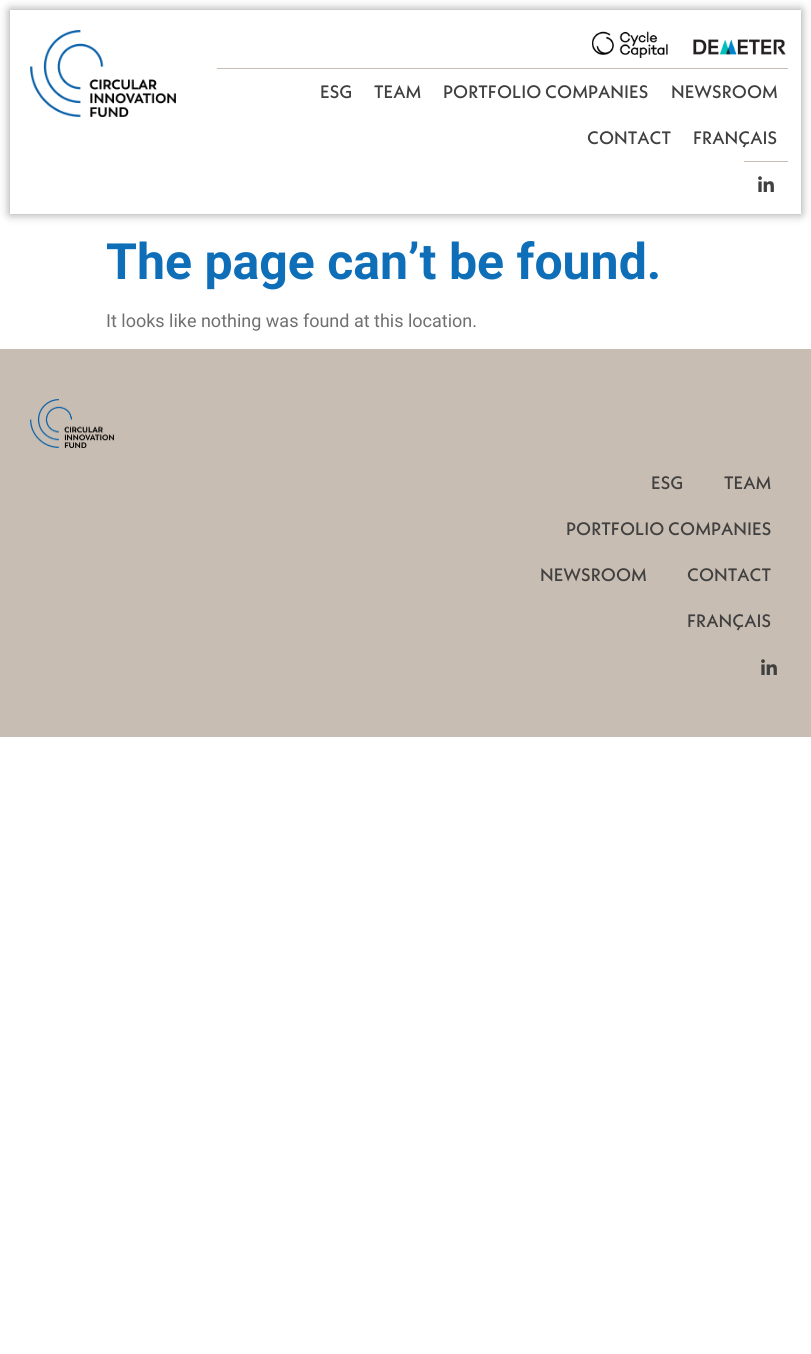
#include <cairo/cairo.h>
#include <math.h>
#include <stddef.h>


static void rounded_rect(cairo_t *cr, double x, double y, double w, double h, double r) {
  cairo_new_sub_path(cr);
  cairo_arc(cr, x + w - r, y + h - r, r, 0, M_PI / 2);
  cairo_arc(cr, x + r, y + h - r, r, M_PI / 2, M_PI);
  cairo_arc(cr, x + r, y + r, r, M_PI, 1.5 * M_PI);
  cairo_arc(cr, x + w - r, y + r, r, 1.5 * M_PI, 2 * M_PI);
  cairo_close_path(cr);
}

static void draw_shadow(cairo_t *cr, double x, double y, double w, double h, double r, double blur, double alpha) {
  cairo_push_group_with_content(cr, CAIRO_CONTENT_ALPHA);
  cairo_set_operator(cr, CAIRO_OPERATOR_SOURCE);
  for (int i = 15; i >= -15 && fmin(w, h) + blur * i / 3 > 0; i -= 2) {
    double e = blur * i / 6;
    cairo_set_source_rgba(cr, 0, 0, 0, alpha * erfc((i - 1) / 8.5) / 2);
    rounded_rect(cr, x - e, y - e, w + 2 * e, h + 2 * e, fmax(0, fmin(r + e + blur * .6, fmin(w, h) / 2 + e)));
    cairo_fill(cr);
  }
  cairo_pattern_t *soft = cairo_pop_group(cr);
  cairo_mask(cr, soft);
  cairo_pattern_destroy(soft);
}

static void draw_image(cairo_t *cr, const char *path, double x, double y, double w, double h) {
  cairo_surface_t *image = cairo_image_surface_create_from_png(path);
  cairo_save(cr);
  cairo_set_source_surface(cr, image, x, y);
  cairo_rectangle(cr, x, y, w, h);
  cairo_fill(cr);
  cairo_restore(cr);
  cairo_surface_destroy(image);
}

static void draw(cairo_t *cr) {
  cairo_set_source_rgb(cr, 1, 1, 1);
  cairo_paint(cr);
  cairo_save(cr);
  cairo_set_fill_rule(cr, CAIRO_FILL_RULE_EVEN_ODD);
  cairo_new_path(cr);
  cairo_move_to(cr, 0, 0);
  cairo_line_to(cr, 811, 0);
  cairo_line_to(cr, 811, 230);
  cairo_line_to(cr, 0, 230);
  cairo_close_path(cr);
  cairo_move_to(cr, 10, 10);
  cairo_line_to(cr, 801, 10);
  cairo_line_to(cr, 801, 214);
  cairo_line_to(cr, 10, 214);
  cairo_close_path(cr);
  cairo_clip(cr);
  cairo_set_source_rgb(cr, 0, 0, 0);
  draw_shadow(cr, 10, 10, 791, 204, 0, 5, 0.41);
  cairo_restore(cr);
  draw_image(cr, "images/1.png", 30, 30, 146, 87);
  draw_image(cr, "images/2.png", 592, 31, 194, 27);
  cairo_set_source_rgb(cr, 200 / 255.0, 189 / 255.0, 178 / 255.0);
  cairo_rectangle(cr, 217, 68, 571, 1);
  cairo_fill(cr);
  cairo_rectangle(cr, 744, 161, 44, 1);
  cairo_fill(cr);
  draw_image(cr, "images/3.png", 758, 176, 16, 16);
  cairo_rectangle(cr, 0, 349, 811, 388);
  cairo_fill(cr);
  draw_image(cr, "images/4.png", 30, 399, 84, 49);
  draw_image(cr, "images/5.png", 761, 659, 16, 16);
  cairo_select_font_face(cr, "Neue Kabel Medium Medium", CAIRO_FONT_SLANT_NORMAL, CAIRO_FONT_WEIGHT_NORMAL);
  cairo_set_font_size(cr, 18);
  cairo_set_source_rgb(cr, 65 / 255.0, 64 / 255.0, 64 / 255.0);
  cairo_move_to(cr, 320, 98);
  cairo_show_text(cr, "ESG");
  cairo_move_to(cr, 374, 98);
  cairo_show_text(cr, "TEAM");
  cairo_move_to(cr, 443, 98);
  cairo_show_text(cr, "PORTFOLIO COMPANIES");
  cairo_move_to(cr, 671, 98);
  cairo_show_text(cr, "NEWSROOM");
  cairo_move_to(cr, 587, 144);
  cairo_show_text(cr, "CONTACT");
  cairo_move_to(cr, 693, 144);
  cairo_show_text(cr, "FRANÇAIS");
  cairo_select_font_face(cr, "Roboto", CAIRO_FONT_SLANT_NORMAL, CAIRO_FONT_WEIGHT_BOLD);
  cairo_set_font_size(cr, 50);
  cairo_set_source_rgb(cr, 14 / 255.0, 111 / 255.0, 184 / 255.0);
  cairo_move_to(cr, 106, 279);
  cairo_show_text(cr, "The page can’t be found.");
  cairo_select_font_face(cr, "Roboto", CAIRO_FONT_SLANT_NORMAL, CAIRO_FONT_WEIGHT_NORMAL);
  cairo_set_font_size(cr, 18);
  cairo_set_source_rgb(cr, 112 / 255.0, 112 / 255.0, 112 / 255.0);
  cairo_move_to(cr, 106, 327);
  cairo_show_text(cr, "It looks like nothing was found at this location.");
  cairo_select_font_face(cr, "Neue Kabel Medium Medium", CAIRO_FONT_SLANT_NORMAL, CAIRO_FONT_WEIGHT_NORMAL);
  cairo_set_source_rgb(cr, 65 / 255.0, 64 / 255.0, 64 / 255.0);
  cairo_move_to(cr, 651, 489);
  cairo_show_text(cr, "ESG");
  cairo_move_to(cr, 724, 489);
  cairo_show_text(cr, "TEAM");
  cairo_move_to(cr, 566, 535);
  cairo_show_text(cr, "PORTFOLIO COMPANIES");
  cairo_move_to(cr, 540, 581);
  cairo_show_text(cr, "NEWSROOM");
  cairo_move_to(cr, 687, 581);
  cairo_show_text(cr, "CONTACT");
  cairo_move_to(cr, 687, 627);
  cairo_show_text(cr, "FRANÇAIS");
}

int main(void) {
  cairo_surface_t *surface = cairo_image_surface_create(CAIRO_FORMAT_RGB24, 811, 1354);
  cairo_t *cr = cairo_create(surface);
  cairo_font_options_t *options = cairo_font_options_create();
  cairo_font_options_set_hint_metrics(options, CAIRO_HINT_METRICS_OFF);
  cairo_font_options_set_hint_style(options, CAIRO_HINT_STYLE_NONE);
  cairo_set_font_options(cr, options);
  cairo_set_miter_limit(cr, 4);
  draw(cr);
  cairo_surface_write_to_png(surface, "out.png");
  cairo_font_options_destroy(options);
  cairo_destroy(cr);
  cairo_surface_destroy(surface);
  return 0;
}
